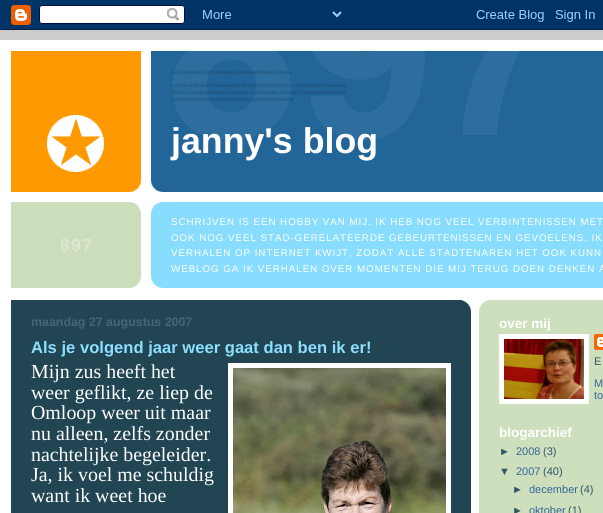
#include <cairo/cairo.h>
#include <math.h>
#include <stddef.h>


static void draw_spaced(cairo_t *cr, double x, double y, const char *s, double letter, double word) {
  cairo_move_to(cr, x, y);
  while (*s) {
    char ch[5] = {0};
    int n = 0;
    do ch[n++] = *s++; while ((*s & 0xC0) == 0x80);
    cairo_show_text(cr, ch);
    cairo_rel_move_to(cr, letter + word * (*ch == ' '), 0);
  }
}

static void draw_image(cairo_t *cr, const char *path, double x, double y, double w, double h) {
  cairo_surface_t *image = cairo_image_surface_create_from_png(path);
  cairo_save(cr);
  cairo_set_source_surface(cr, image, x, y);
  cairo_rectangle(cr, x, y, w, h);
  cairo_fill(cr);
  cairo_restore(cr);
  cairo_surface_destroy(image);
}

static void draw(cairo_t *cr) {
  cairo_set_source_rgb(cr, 204 / 255.0, 204 / 255.0, 204 / 255.0);
  cairo_paint(cr);
  draw_image(cr, "images/1.png", 0, 0, 603, 30);
  cairo_set_source_rgb(cr, 1, 1, 1);
  cairo_rectangle(cr, 0, 40, 603, 473);
  cairo_fill(cr);
  cairo_set_source_rgb(cr, 34 / 255.0, 102 / 255.0, 153 / 255.0);
  cairo_rectangle(cr, 151, 51, 452, 141);
  cairo_fill(cr);
  draw_image(cr, "images/2.png", 11, 51, 152, 141);
  draw_image(cr, "images/3.png", 171, 51, 348, 89);
  cairo_set_source_rgb(cr, 136 / 255.0, 221 / 255.0, 1);
  cairo_rectangle(cr, 151, 202, 452, 86);
  cairo_fill(cr);
  draw_image(cr, "images/4.png", 11, 202, 152, 86);
  draw_image(cr, "images/5.png", 130, 276, 33, 12);
  draw_image(cr, "images/6.png", 60, 238, 32, 14);
  cairo_set_source_rgb(cr, 33 / 255.0, 69 / 255.0, 82 / 255.0);
  cairo_rectangle(cr, 11, 300, 460, 213);
  cairo_fill(cr);
  draw_image(cr, "images/7.png", 462, 300, 9, 12);
  cairo_rectangle(cr, 230.5, 365.5, 218, 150);
  cairo_set_source_rgb(cr, 1, 1, 1);
  cairo_set_line_width(cr, 5);
  cairo_stroke(cr);
  draw_image(cr, "images/8.png", 233, 368, 213, 145);
  cairo_set_source_rgb(cr, 206 / 255.0, 223 / 255.0, 189 / 255.0);
  cairo_rectangle(cr, 479, 300, 124, 213);
  cairo_fill(cr);
  draw_image(cr, "images/9.png", 479, 300, 11, 11);
  cairo_rectangle(cr, 501.5, 336.5, 85, 65);
  cairo_set_source_rgb(cr, 1, 1, 1);
  cairo_stroke(cr);
  draw_image(cr, "images/10.png", 504, 339, 80, 60);
  draw_image(cr, "images/11.png", 594, 334, 9, 16);
  cairo_select_font_face(cr, "Liberation Sans", CAIRO_FONT_SLANT_NORMAL, CAIRO_FONT_WEIGHT_BOLD);
  cairo_set_font_size(cr, 35.75);
  cairo_move_to(cr, 171, 153);
  cairo_show_text(cr, "janny's blog");
  cairo_select_font_face(cr, "Liberation Sans", CAIRO_FONT_SLANT_NORMAL, CAIRO_FONT_WEIGHT_NORMAL);
  cairo_set_font_size(cr, 9.75);
  draw_spaced(cr, 171, 225, "SCHRIJVEN IS EEN HOBBY VAN MIJ. IK HEB NOG VEEL VERBINTENISSEN MET", 0.97, 0);
  draw_spaced(cr, 171, 241, "OOK NOG VEEL STAD-GERELATEERDE GEBEURTENISSEN EN GEVOELENS. IK", 0.97, 0);
  draw_spaced(cr, 171, 256, "VERHALEN OP INTERNET KWIJT, ZODAT ALLE STADTENAREN HET OOK KUNN", 0.97, 0);
  draw_spaced(cr, 171, 272, "WEBLOG GA IK VERHALEN OVER MOMENTEN DIE MIJ TERUG DOEN DENKEN A", 0.97, 0);
  cairo_select_font_face(cr, "Liberation Sans", CAIRO_FONT_SLANT_NORMAL, CAIRO_FONT_WEIGHT_BOLD);
  cairo_set_font_size(cr, 12.4);
  cairo_set_source_rgb(cr, 68 / 255.0, 102 / 255.0, 119 / 255.0);
  cairo_move_to(cr, 31, 326);
  cairo_show_text(cr, "maandag 27 augustus 2007");
  cairo_set_font_size(cr, 16.6);
  cairo_set_source_rgb(cr, 140 / 255.0, 223 / 255.0, 1);
  cairo_move_to(cr, 31, 353);
  cairo_show_text(cr, "Als je volgend jaar weer gaat dan ben ik er!");
  cairo_select_font_face(cr, "Liberation Serif", CAIRO_FONT_SLANT_NORMAL, CAIRO_FONT_WEIGHT_NORMAL);
  cairo_set_font_size(cr, 19.9);
  cairo_set_source_rgb(cr, 1, 1, 1);
  cairo_move_to(cr, 31, 378);
  cairo_show_text(cr, "Mijn zus heeft het");
  cairo_move_to(cr, 31, 399);
  cairo_show_text(cr, "weer geflikt, ze liep de");
  cairo_move_to(cr, 31, 419);
  cairo_show_text(cr, "Omloop weer uit maar");
  cairo_move_to(cr, 31, 440);
  cairo_show_text(cr, "nu alleen, zelfs zonder");
  cairo_move_to(cr, 31, 461);
  cairo_show_text(cr, "nachtelijke begeleider.");
  cairo_move_to(cr, 31, 481);
  cairo_show_text(cr, "Ja, ik voel me schuldig");
  cairo_move_to(cr, 31, 502);
  cairo_show_text(cr, "want ik weet hoe");
  cairo_select_font_face(cr, "Liberation Sans", CAIRO_FONT_SLANT_NORMAL, CAIRO_FONT_WEIGHT_BOLD);
  cairo_set_font_size(cr, 13.5);
  cairo_move_to(cr, 499, 328);
  cairo_show_text(cr, "over mij");
  cairo_select_font_face(cr, "Liberation Sans", CAIRO_FONT_SLANT_NORMAL, CAIRO_FONT_WEIGHT_NORMAL);
  cairo_set_font_size(cr, 11);
  cairo_set_source_rgb(cr, 51 / 255.0, 85 / 255.0, 102 / 255.0);
  cairo_move_to(cr, 594, 365);
  cairo_show_text(cr, "E");
  cairo_set_source_rgb(cr, 51 / 255.0, 102 / 255.0, 153 / 255.0);
  cairo_move_to(cr, 594, 387);
  cairo_show_text(cr, "M");
  cairo_move_to(cr, 594, 399);
  cairo_show_text(cr, "to");
  cairo_select_font_face(cr, "Liberation Sans", CAIRO_FONT_SLANT_NORMAL, CAIRO_FONT_WEIGHT_BOLD);
  cairo_set_font_size(cr, 13.5);
  cairo_set_source_rgb(cr, 1, 1, 1);
  cairo_move_to(cr, 499, 437);
  cairo_show_text(cr, "blogarchief");
  cairo_select_font_face(cr, "Liberation Sans", CAIRO_FONT_SLANT_NORMAL, CAIRO_FONT_WEIGHT_NORMAL);
  cairo_set_font_size(cr, 11);
  cairo_set_source_rgb(cr, 51 / 255.0, 85 / 255.0, 102 / 255.0);
  cairo_move_to(cr, 499, 455);
  cairo_show_text(cr, "►");
  cairo_set_source_rgb(cr, 51 / 255.0, 102 / 255.0, 153 / 255.0);
  cairo_move_to(cr, 516, 455);
  cairo_show_text(cr, "2008");
  cairo_set_source_rgb(cr, 51 / 255.0, 85 / 255.0, 102 / 255.0);
  cairo_move_to(cr, 543, 455);
  cairo_show_text(cr, "(3)");
  cairo_move_to(cr, 499, 475);
  cairo_show_text(cr, "▼");
  cairo_set_source_rgb(cr, 51 / 255.0, 102 / 255.0, 153 / 255.0);
  cairo_move_to(cr, 516, 475);
  cairo_show_text(cr, "2007");
  cairo_set_source_rgb(cr, 51 / 255.0, 85 / 255.0, 102 / 255.0);
  cairo_move_to(cr, 543, 475);
  cairo_show_text(cr, "(40)");
  cairo_move_to(cr, 512, 493);
  cairo_show_text(cr, "►");
  cairo_set_source_rgb(cr, 51 / 255.0, 102 / 255.0, 153 / 255.0);
  cairo_move_to(cr, 529, 493);
  cairo_show_text(cr, "december");
  cairo_set_source_rgb(cr, 51 / 255.0, 85 / 255.0, 102 / 255.0);
  cairo_move_to(cr, 580, 493);
  cairo_show_text(cr, "(4)");
  cairo_move_to(cr, 512, 514);
  cairo_show_text(cr, "►");
  cairo_set_source_rgb(cr, 51 / 255.0, 102 / 255.0, 153 / 255.0);
  cairo_move_to(cr, 529, 514);
  cairo_show_text(cr, "oktober");
  cairo_set_source_rgb(cr, 51 / 255.0, 85 / 255.0, 102 / 255.0);
  cairo_move_to(cr, 568, 514);
  cairo_show_text(cr, "(1)");
}

int main(void) {
  cairo_surface_t *surface = cairo_image_surface_create(CAIRO_FORMAT_RGB24, 603, 513);
  cairo_t *cr = cairo_create(surface);
  cairo_font_options_t *options = cairo_font_options_create();
  cairo_font_options_set_hint_metrics(options, CAIRO_HINT_METRICS_OFF);
  cairo_font_options_set_hint_style(options, CAIRO_HINT_STYLE_NONE);
  cairo_set_font_options(cr, options);
  cairo_set_miter_limit(cr, 4);
  draw(cr);
  cairo_surface_write_to_png(surface, "out.png");
  cairo_font_options_destroy(options);
  cairo_destroy(cr);
  cairo_surface_destroy(surface);
  return 0;
}
